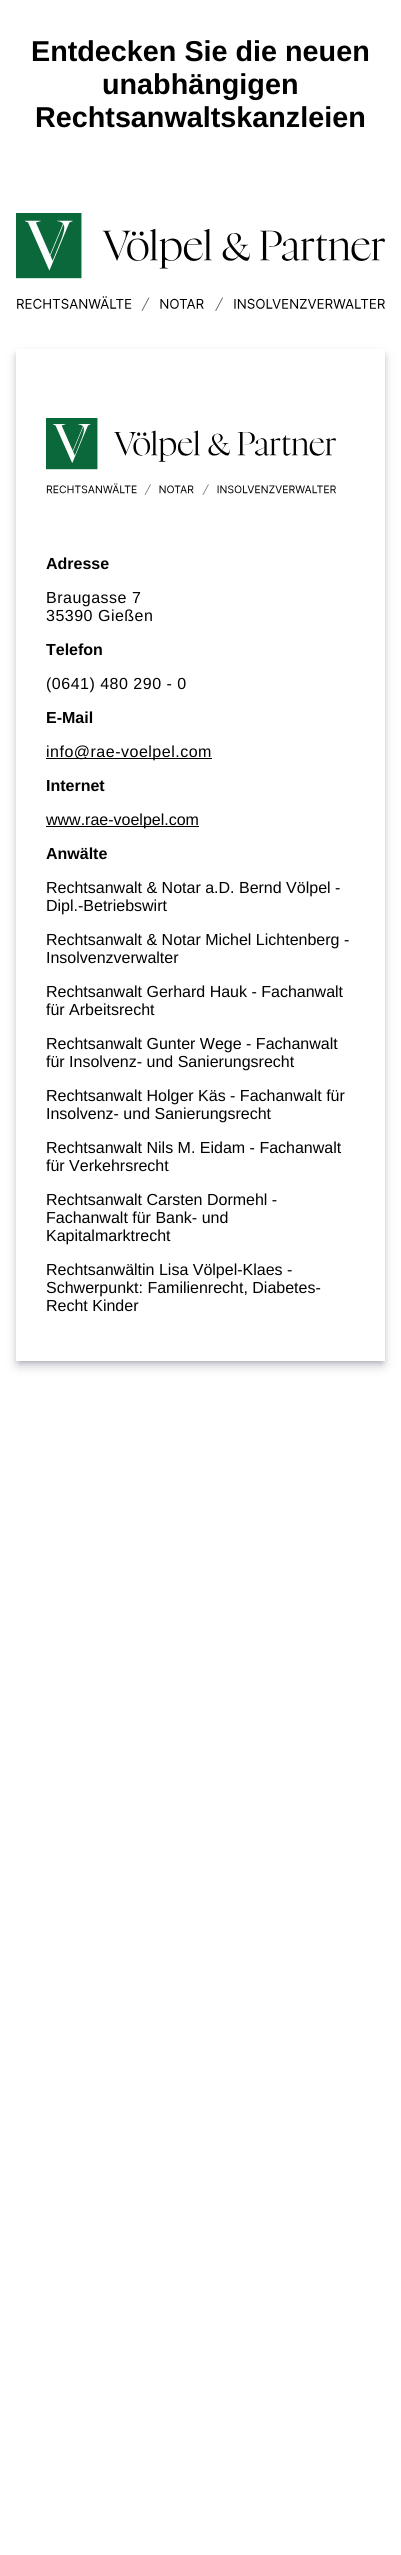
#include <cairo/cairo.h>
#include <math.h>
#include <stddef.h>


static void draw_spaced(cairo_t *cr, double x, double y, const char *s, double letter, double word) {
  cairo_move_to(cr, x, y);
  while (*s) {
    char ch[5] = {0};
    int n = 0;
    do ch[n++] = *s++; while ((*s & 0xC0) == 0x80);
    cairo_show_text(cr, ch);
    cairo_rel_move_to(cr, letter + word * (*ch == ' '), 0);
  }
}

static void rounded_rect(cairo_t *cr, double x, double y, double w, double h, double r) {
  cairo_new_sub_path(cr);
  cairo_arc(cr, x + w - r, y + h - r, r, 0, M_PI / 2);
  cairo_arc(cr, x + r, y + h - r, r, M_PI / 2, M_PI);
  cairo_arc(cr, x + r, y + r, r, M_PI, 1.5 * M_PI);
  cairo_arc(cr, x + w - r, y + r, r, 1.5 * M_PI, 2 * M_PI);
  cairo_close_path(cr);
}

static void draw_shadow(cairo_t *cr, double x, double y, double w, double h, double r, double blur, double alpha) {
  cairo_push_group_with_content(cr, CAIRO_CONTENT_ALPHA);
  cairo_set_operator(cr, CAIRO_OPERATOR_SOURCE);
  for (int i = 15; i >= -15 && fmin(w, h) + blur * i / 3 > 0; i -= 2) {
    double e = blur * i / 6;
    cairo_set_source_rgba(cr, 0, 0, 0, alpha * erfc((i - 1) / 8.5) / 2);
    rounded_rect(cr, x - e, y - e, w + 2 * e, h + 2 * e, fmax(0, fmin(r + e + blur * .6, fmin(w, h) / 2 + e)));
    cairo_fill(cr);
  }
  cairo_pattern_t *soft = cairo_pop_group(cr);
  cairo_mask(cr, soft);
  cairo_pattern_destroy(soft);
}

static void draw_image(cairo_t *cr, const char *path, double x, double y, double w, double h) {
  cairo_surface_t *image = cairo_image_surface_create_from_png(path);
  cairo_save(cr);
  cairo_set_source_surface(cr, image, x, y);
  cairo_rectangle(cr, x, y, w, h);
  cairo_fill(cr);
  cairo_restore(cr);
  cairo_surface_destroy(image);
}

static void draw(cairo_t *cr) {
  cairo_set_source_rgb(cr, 1, 1, 1);
  cairo_paint(cr);
  draw_image(cr, "images/1.png", 16, 213, 369, 98);
  cairo_save(cr);
  cairo_set_fill_rule(cr, CAIRO_FILL_RULE_EVEN_ODD);
  cairo_new_path(cr);
  cairo_move_to(cr, 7, 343);
  cairo_line_to(cr, 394, 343);
  cairo_line_to(cr, 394, 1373);
  cairo_line_to(cr, 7, 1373);
  cairo_close_path(cr);
  cairo_move_to(cr, 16, 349);
  cairo_line_to(cr, 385, 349);
  cairo_line_to(cr, 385, 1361);
  cairo_line_to(cr, 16, 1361);
  cairo_close_path(cr);
  cairo_clip(cr);
  cairo_set_source_rgb(cr, 0, 0, 0);
  draw_shadow(cr, 19, 355, 363, 1006, 0, 3.5, 0.3);
  cairo_restore(cr);
  cairo_save(cr);
  cairo_set_fill_rule(cr, CAIRO_FILL_RULE_EVEN_ODD);
  cairo_new_path(cr);
  cairo_move_to(cr, 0, 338);
  cairo_line_to(cr, 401, 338);
  cairo_line_to(cr, 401, 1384);
  cairo_line_to(cr, 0, 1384);
  cairo_close_path(cr);
  cairo_move_to(cr, 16, 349);
  cairo_line_to(cr, 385, 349);
  cairo_line_to(cr, 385, 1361);
  cairo_line_to(cr, 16, 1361);
  cairo_close_path(cr);
  cairo_clip(cr);
  cairo_set_source_rgb(cr, 50 / 255.0, 50 / 255.0, 93 / 255.0);
  draw_shadow(cr, 18, 357, 365, 1008, 0, 6, 0.25);
  cairo_restore(cr);
  draw_image(cr, "images/2.png", 46, 418, 290, 77);
  cairo_set_source_rgb(cr, 0, 0, 0);
  cairo_rectangle(cr, 46, 758, 166, 1);
  cairo_fill(cr);
  cairo_rectangle(cr, 46, 826, 153, 1);
  cairo_fill(cr);
  cairo_select_font_face(cr, "Liberation Sans", CAIRO_FONT_SLANT_NORMAL, CAIRO_FONT_WEIGHT_BOLD);
  cairo_set_font_size(cr, 28.75);
  cairo_move_to(cr, 31, 61);
  cairo_show_text(cr, "Entdecken Sie die neuen");
  cairo_move_to(cr, 102, 94);
  cairo_show_text(cr, "unabhängigen");
  cairo_move_to(cr, 35, 127);
  cairo_show_text(cr, "Rechtsanwaltskanzleien");
  cairo_set_font_size(cr, 16);
  cairo_move_to(cr, 46, 569);
  cairo_show_text(cr, "Adresse");
  cairo_select_font_face(cr, "Liberation Sans", CAIRO_FONT_SLANT_NORMAL, CAIRO_FONT_WEIGHT_NORMAL);
  draw_spaced(cr, 46, 603, "Braugasse 7", 0.5, 0);
  draw_spaced(cr, 46, 621, "35390 Gießen", 0.5, 0);
  cairo_select_font_face(cr, "Liberation Sans", CAIRO_FONT_SLANT_NORMAL, CAIRO_FONT_WEIGHT_BOLD);
  cairo_move_to(cr, 46, 655);
  cairo_show_text(cr, "Telefon");
  cairo_select_font_face(cr, "Liberation Sans", CAIRO_FONT_SLANT_NORMAL, CAIRO_FONT_WEIGHT_NORMAL);
  draw_spaced(cr, 46, 689, "(0641) 480 290 - 0", 0.5, 0);
  cairo_select_font_face(cr, "Liberation Sans", CAIRO_FONT_SLANT_NORMAL, CAIRO_FONT_WEIGHT_BOLD);
  cairo_move_to(cr, 46, 723);
  cairo_show_text(cr, "E-Mail");
  cairo_select_font_face(cr, "Liberation Sans", CAIRO_FONT_SLANT_NORMAL, CAIRO_FONT_WEIGHT_NORMAL);
  draw_spaced(cr, 46, 757, "info@rae-voelpel.com", 0.5, 0);
  cairo_select_font_face(cr, "Liberation Sans", CAIRO_FONT_SLANT_NORMAL, CAIRO_FONT_WEIGHT_BOLD);
  cairo_move_to(cr, 46, 791);
  cairo_show_text(cr, "Internet");
  cairo_select_font_face(cr, "Liberation Sans", CAIRO_FONT_SLANT_NORMAL, CAIRO_FONT_WEIGHT_NORMAL);
  cairo_move_to(cr, 46, 825);
  cairo_show_text(cr, "www.rae-voelpel.com");
  cairo_select_font_face(cr, "Liberation Sans", CAIRO_FONT_SLANT_NORMAL, CAIRO_FONT_WEIGHT_BOLD);
  cairo_move_to(cr, 46, 859);
  cairo_show_text(cr, "Anwälte");
  cairo_select_font_face(cr, "Liberation Sans", CAIRO_FONT_SLANT_NORMAL, CAIRO_FONT_WEIGHT_NORMAL);
  cairo_move_to(cr, 46, 893);
  cairo_show_text(cr, "Rechtsanwalt & Notar a.D. Bernd Völpel -");
  cairo_move_to(cr, 46, 911);
  cairo_show_text(cr, "Dipl.-Betriebswirt");
  cairo_move_to(cr, 46, 945);
  cairo_show_text(cr, "Rechtsanwalt & Notar Michel Lichtenberg -");
  cairo_move_to(cr, 46, 963);
  cairo_show_text(cr, "Insolvenzverwalter");
  cairo_move_to(cr, 46, 997);
  cairo_show_text(cr, "Rechtsanwalt Gerhard Hauk - Fachanwalt");
  cairo_move_to(cr, 46, 1015);
  cairo_show_text(cr, "für Arbeitsrecht");
  cairo_move_to(cr, 46, 1049);
  cairo_show_text(cr, "Rechtsanwalt Gunter Wege - Fachanwalt");
  cairo_move_to(cr, 46, 1067);
  cairo_show_text(cr, "für Insolvenz- und Sanierungsrecht");
  cairo_move_to(cr, 46, 1101);
  cairo_show_text(cr, "Rechtsanwalt Holger Käs - Fachanwalt für");
  cairo_move_to(cr, 46, 1119);
  cairo_show_text(cr, "Insolvenz- und Sanierungsrecht");
  cairo_move_to(cr, 46, 1153);
  cairo_show_text(cr, "Rechtsanwalt Nils M. Eidam - Fachanwalt");
  cairo_move_to(cr, 46, 1171);
  cairo_show_text(cr, "für Verkehrsrecht");
  cairo_move_to(cr, 46, 1205);
  cairo_show_text(cr, "Rechtsanwalt Carsten Dormehl -");
  cairo_move_to(cr, 46, 1223);
  cairo_show_text(cr, "Fachanwalt für Bank- und");
  cairo_move_to(cr, 46, 1241);
  cairo_show_text(cr, "Kapitalmarktrecht");
  cairo_move_to(cr, 46, 1275);
  cairo_show_text(cr, "Rechtsanwältin Lisa Völpel-Klaes -");
  cairo_move_to(cr, 46, 1293);
  cairo_show_text(cr, "Schwerpunkt: Familienrecht, Diabetes-");
  cairo_move_to(cr, 46, 1311);
  cairo_show_text(cr, "Recht Kinder");
}

int main(void) {
  cairo_surface_t *surface = cairo_image_surface_create(CAIRO_FORMAT_RGB24, 401, 2555);
  cairo_t *cr = cairo_create(surface);
  cairo_font_options_t *options = cairo_font_options_create();
  cairo_font_options_set_hint_metrics(options, CAIRO_HINT_METRICS_OFF);
  cairo_font_options_set_hint_style(options, CAIRO_HINT_STYLE_NONE);
  cairo_set_font_options(cr, options);
  cairo_set_miter_limit(cr, 4);
  draw(cr);
  cairo_surface_write_to_png(surface, "out.png");
  cairo_font_options_destroy(options);
  cairo_destroy(cr);
  cairo_surface_destroy(surface);
  return 0;
}
